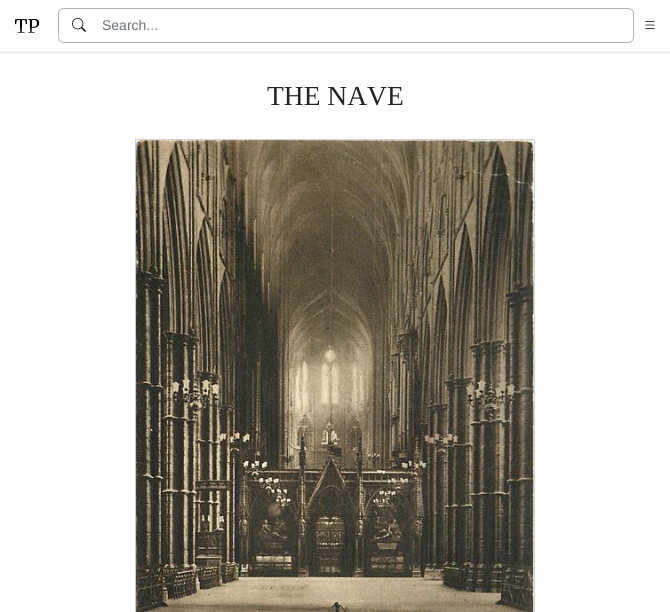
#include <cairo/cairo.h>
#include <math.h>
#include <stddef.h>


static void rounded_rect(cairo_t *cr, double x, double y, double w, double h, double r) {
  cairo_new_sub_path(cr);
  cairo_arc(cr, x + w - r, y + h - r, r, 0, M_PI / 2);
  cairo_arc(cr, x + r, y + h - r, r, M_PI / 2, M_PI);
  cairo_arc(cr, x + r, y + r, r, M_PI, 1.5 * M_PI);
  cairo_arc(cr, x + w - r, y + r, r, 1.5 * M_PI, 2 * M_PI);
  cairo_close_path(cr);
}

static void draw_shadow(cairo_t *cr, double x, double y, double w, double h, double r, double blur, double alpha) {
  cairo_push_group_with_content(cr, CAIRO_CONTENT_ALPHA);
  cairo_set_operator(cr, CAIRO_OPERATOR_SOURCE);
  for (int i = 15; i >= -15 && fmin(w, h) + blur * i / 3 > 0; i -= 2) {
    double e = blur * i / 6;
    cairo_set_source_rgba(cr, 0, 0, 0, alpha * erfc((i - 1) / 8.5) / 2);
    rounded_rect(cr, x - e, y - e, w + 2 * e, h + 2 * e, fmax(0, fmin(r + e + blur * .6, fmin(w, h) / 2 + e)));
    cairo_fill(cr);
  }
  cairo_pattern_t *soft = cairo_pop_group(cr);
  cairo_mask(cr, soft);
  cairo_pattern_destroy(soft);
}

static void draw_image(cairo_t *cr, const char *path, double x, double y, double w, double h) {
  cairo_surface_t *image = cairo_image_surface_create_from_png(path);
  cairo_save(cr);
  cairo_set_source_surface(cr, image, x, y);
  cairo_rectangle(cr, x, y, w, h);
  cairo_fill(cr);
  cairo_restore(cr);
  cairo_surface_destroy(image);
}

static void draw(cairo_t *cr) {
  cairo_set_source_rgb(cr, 1, 1, 1);
  cairo_paint(cr);
  cairo_save(cr);
  cairo_rectangle(cr, 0, 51, 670, 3);
  cairo_clip(cr);
  cairo_set_source_rgb(cr, 0, 0, 0);
  draw_shadow(cr, 0, 2, 670, 51, 0, 2, 0.07);
  cairo_restore(cr);
  draw_image(cr, "images/1.png", 14, 19, 26, 14);
  rounded_rect(cr, 58.5, 8.5, 575, 34, 5.5);
  cairo_set_source_rgb(cr, 173 / 255.0, 181 / 255.0, 189 / 255.0);
  cairo_set_line_width(cr, 1);
  cairo_stroke(cr);
  draw_image(cr, "images/2.png", 72, 18, 14, 14);
  cairo_set_source_rgb(cr, 1, 1, 1);
  cairo_new_path(cr);
  cairo_move_to(cr, 607, 9);
  cairo_line_to(cr, 627, 9);
  cairo_curve_to(cr, 630.5, 9, 633, 11.5, 633, 15);
  cairo_line_to(cr, 633, 36);
  cairo_curve_to(cr, 633, 39.5, 630.5, 42, 627, 42);
  cairo_line_to(cr, 607, 42);
  cairo_close_path(cr);
  cairo_fill(cr);
  draw_image(cr, "images/3.png", 645, 21, 10, 8);
  cairo_rectangle(cr, 135.5, 139.5, 399, 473);
  cairo_set_source_rgb(cr, 210 / 255.0, 210 / 255.0, 210 / 255.0);
  cairo_stroke(cr);
  draw_image(cr, "images/4.png", 136, 140, 398, 472);
  cairo_select_font_face(cr, "Liberation Sans", CAIRO_FONT_SLANT_NORMAL, CAIRO_FONT_WEIGHT_NORMAL);
  cairo_set_font_size(cr, 14);
  cairo_set_source_rgb(cr, 108 / 255.0, 117 / 255.0, 125 / 255.0);
  cairo_move_to(cr, 102, 30);
  cairo_show_text(cr, "Search...");
  cairo_select_font_face(cr, "Liberation Serif", CAIRO_FONT_SLANT_NORMAL, CAIRO_FONT_WEIGHT_NORMAL);
  cairo_set_font_size(cr, 27.5);
  cairo_set_source_rgb(cr, 33 / 255.0, 37 / 255.0, 41 / 255.0);
  cairo_move_to(cr, 267, 105);
  cairo_show_text(cr, "THE NAVE");
}

int main(void) {
  cairo_surface_t *surface = cairo_image_surface_create(CAIRO_FORMAT_RGB24, 670, 612);
  cairo_t *cr = cairo_create(surface);
  cairo_font_options_t *options = cairo_font_options_create();
  cairo_font_options_set_hint_metrics(options, CAIRO_HINT_METRICS_OFF);
  cairo_font_options_set_hint_style(options, CAIRO_HINT_STYLE_NONE);
  cairo_set_font_options(cr, options);
  cairo_set_miter_limit(cr, 4);
  draw(cr);
  cairo_surface_write_to_png(surface, "out.png");
  cairo_font_options_destroy(options);
  cairo_destroy(cr);
  cairo_surface_destroy(surface);
  return 0;
}
